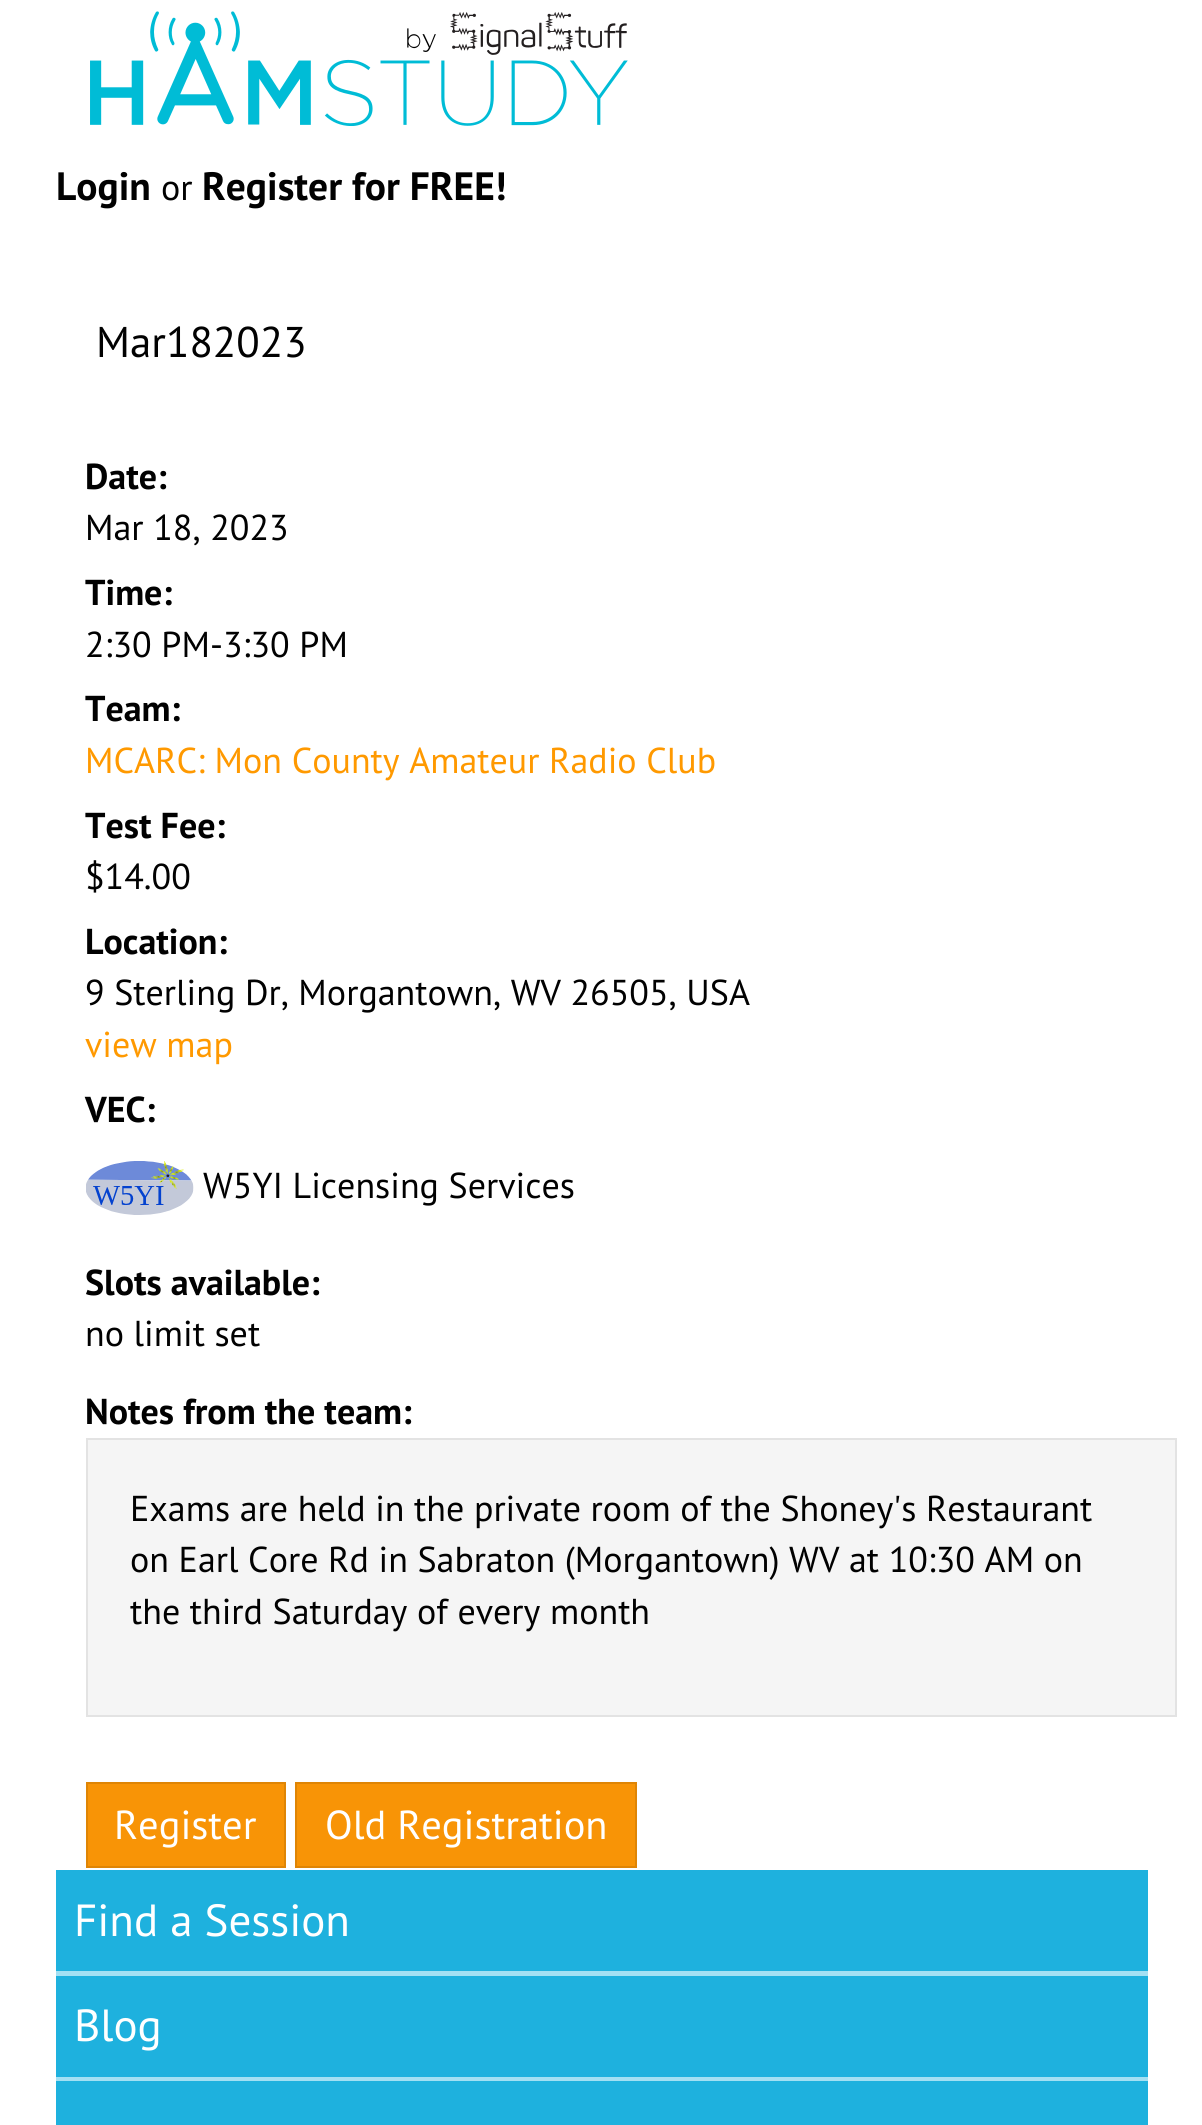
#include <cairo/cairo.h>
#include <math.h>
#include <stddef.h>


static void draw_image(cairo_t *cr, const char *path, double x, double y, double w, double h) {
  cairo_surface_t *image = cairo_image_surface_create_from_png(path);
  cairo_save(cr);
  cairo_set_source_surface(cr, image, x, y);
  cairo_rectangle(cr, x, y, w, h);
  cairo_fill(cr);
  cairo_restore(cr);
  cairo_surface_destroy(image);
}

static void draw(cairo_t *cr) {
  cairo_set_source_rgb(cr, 1, 1, 1);
  cairo_paint(cr);
  draw_image(cr, "images/1.png", 90, 11, 538, 115);
  draw_image(cr, "images/2.png", 86, 1161, 108, 54);
  cairo_set_source_rgb(cr, 245 / 255.0, 245 / 255.0, 245 / 255.0);
  cairo_rectangle(cr, 87, 1439, 1089, 277);
  cairo_fill_preserve(cr);
  cairo_set_source_rgb(cr, 227 / 255.0, 227 / 255.0, 227 / 255.0);
  cairo_stroke(cr);
  cairo_set_source_rgb(cr, 248 / 255.0, 148 / 255.0, 6 / 255.0);
  cairo_rectangle(cr, 87, 1783, 198, 84);
  cairo_fill_preserve(cr);
  cairo_set_source_rgb(cr, 223 / 255.0, 133 / 255.0, 5 / 255.0);
  cairo_stroke(cr);
  cairo_set_source_rgb(cr, 248 / 255.0, 148 / 255.0, 6 / 255.0);
  cairo_rectangle(cr, 296, 1783, 340, 84);
  cairo_fill_preserve(cr);
  cairo_set_source_rgb(cr, 223 / 255.0, 133 / 255.0, 5 / 255.0);
  cairo_stroke(cr);
  cairo_set_source_rgb(cr, 30 / 255.0, 177 / 255.0, 222 / 255.0);
  cairo_rectangle(cr, 56, 1870, 1092, 101);
  cairo_fill(cr);
  cairo_set_source_rgb(cr, 163 / 255.0, 224 / 255.0, 243 / 255.0);
  cairo_rectangle(cr, 56, 1971, 1092, 5);
  cairo_fill(cr);
  cairo_set_source_rgb(cr, 30 / 255.0, 177 / 255.0, 222 / 255.0);
  cairo_rectangle(cr, 56, 1976, 1092, 101);
  cairo_fill(cr);
  cairo_set_source_rgb(cr, 163 / 255.0, 224 / 255.0, 243 / 255.0);
  cairo_rectangle(cr, 56, 2077, 1092, 4);
  cairo_fill(cr);
  cairo_set_source_rgb(cr, 30 / 255.0, 177 / 255.0, 222 / 255.0);
  cairo_rectangle(cr, 56, 2081, 1092, 44);
  cairo_fill(cr);
  cairo_select_font_face(cr, "PT Sans", CAIRO_FONT_SLANT_NORMAL, CAIRO_FONT_WEIGHT_BOLD);
  cairo_set_font_size(cr, 39.5);
  cairo_set_source_rgb(cr, 1 / 255.0, 1 / 255.0, 1 / 255.0);
  cairo_move_to(cr, 56, 200);
  cairo_show_text(cr, "Login");
  cairo_select_font_face(cr, "PT Sans", CAIRO_FONT_SLANT_NORMAL, CAIRO_FONT_WEIGHT_NORMAL);
  cairo_set_font_size(cr, 36);
  cairo_move_to(cr, 161, 200);
  cairo_show_text(cr, "or");
  cairo_select_font_face(cr, "PT Sans", CAIRO_FONT_SLANT_NORMAL, CAIRO_FONT_WEIGHT_BOLD);
  cairo_set_font_size(cr, 39.5);
  cairo_move_to(cr, 202, 200);
  cairo_show_text(cr, "Register for FREE!");
  cairo_select_font_face(cr, "PT Sans", CAIRO_FONT_SLANT_NORMAL, CAIRO_FONT_WEIGHT_NORMAL);
  cairo_set_font_size(cr, 43);
  cairo_move_to(cr, 96, 357);
  cairo_show_text(cr, "Mar182023");
  cairo_select_font_face(cr, "PT Sans", CAIRO_FONT_SLANT_NORMAL, CAIRO_FONT_WEIGHT_BOLD);
  cairo_set_font_size(cr, 36);
  cairo_move_to(cr, 85, 489);
  cairo_show_text(cr, "Date:");
  cairo_select_font_face(cr, "PT Sans", CAIRO_FONT_SLANT_NORMAL, CAIRO_FONT_WEIGHT_NORMAL);
  cairo_move_to(cr, 85, 540);
  cairo_show_text(cr, "Mar 18, 2023");
  cairo_select_font_face(cr, "PT Sans", CAIRO_FONT_SLANT_NORMAL, CAIRO_FONT_WEIGHT_BOLD);
  cairo_move_to(cr, 85, 605);
  cairo_show_text(cr, "Time:");
  cairo_select_font_face(cr, "PT Sans", CAIRO_FONT_SLANT_NORMAL, CAIRO_FONT_WEIGHT_NORMAL);
  cairo_move_to(cr, 85, 657);
  cairo_show_text(cr, "2:30 PM-3:30 PM");
  cairo_select_font_face(cr, "PT Sans", CAIRO_FONT_SLANT_NORMAL, CAIRO_FONT_WEIGHT_BOLD);
  cairo_move_to(cr, 85, 721);
  cairo_show_text(cr, "Team:");
  cairo_select_font_face(cr, "PT Sans", CAIRO_FONT_SLANT_NORMAL, CAIRO_FONT_WEIGHT_NORMAL);
  cairo_set_source_rgb(cr, 1, 153 / 255.0, 0);
  cairo_move_to(cr, 85, 773);
  cairo_show_text(cr, "MCARC: Mon County Amateur Radio Club");
  cairo_select_font_face(cr, "PT Sans", CAIRO_FONT_SLANT_NORMAL, CAIRO_FONT_WEIGHT_BOLD);
  cairo_set_source_rgb(cr, 1 / 255.0, 1 / 255.0, 1 / 255.0);
  cairo_move_to(cr, 85, 838);
  cairo_show_text(cr, "Test Fee:");
  cairo_select_font_face(cr, "PT Sans", CAIRO_FONT_SLANT_NORMAL, CAIRO_FONT_WEIGHT_NORMAL);
  cairo_move_to(cr, 85, 889);
  cairo_show_text(cr, "$14.00");
  cairo_select_font_face(cr, "PT Sans", CAIRO_FONT_SLANT_NORMAL, CAIRO_FONT_WEIGHT_BOLD);
  cairo_move_to(cr, 85, 954);
  cairo_show_text(cr, "Location:");
  cairo_select_font_face(cr, "PT Sans", CAIRO_FONT_SLANT_NORMAL, CAIRO_FONT_WEIGHT_NORMAL);
  cairo_move_to(cr, 85, 1005);
  cairo_show_text(cr, "9 Sterling Dr, Morgantown, WV 26505, USA");
  cairo_set_source_rgb(cr, 1, 153 / 255.0, 0);
  cairo_move_to(cr, 85, 1057);
  cairo_show_text(cr, "view map");
  cairo_select_font_face(cr, "PT Sans", CAIRO_FONT_SLANT_NORMAL, CAIRO_FONT_WEIGHT_BOLD);
  cairo_set_source_rgb(cr, 1 / 255.0, 1 / 255.0, 1 / 255.0);
  cairo_move_to(cr, 85, 1122);
  cairo_show_text(cr, "VEC:");
  cairo_select_font_face(cr, "PT Sans", CAIRO_FONT_SLANT_NORMAL, CAIRO_FONT_WEIGHT_NORMAL);
  cairo_move_to(cr, 203, 1198);
  cairo_show_text(cr, "W5YI Licensing Services");
  cairo_select_font_face(cr, "PT Sans", CAIRO_FONT_SLANT_NORMAL, CAIRO_FONT_WEIGHT_BOLD);
  cairo_move_to(cr, 85, 1295);
  cairo_show_text(cr, "Slots available:");
  cairo_select_font_face(cr, "PT Sans", CAIRO_FONT_SLANT_NORMAL, CAIRO_FONT_WEIGHT_NORMAL);
  cairo_move_to(cr, 85, 1346);
  cairo_show_text(cr, "no limit set");
  cairo_select_font_face(cr, "PT Sans", CAIRO_FONT_SLANT_NORMAL, CAIRO_FONT_WEIGHT_BOLD);
  cairo_move_to(cr, 85, 1424);
  cairo_show_text(cr, "Notes from the team:");
  cairo_select_font_face(cr, "PT Sans", CAIRO_FONT_SLANT_NORMAL, CAIRO_FONT_WEIGHT_NORMAL);
  cairo_move_to(cr, 130, 1521);
  cairo_show_text(cr, "Exams are held in the private room of the Shoney's Restaurant");
  cairo_move_to(cr, 130, 1572);
  cairo_show_text(cr, "on Earl Core Rd in Sabraton (Morgantown) WV at 10:30 AM on");
  cairo_move_to(cr, 130, 1624);
  cairo_show_text(cr, "the third Saturday of every month");
  cairo_set_font_size(cr, 40.5);
  cairo_set_source_rgb(cr, 1, 1, 1);
  cairo_move_to(cr, 114, 1839);
  cairo_show_text(cr, "Register");
  cairo_move_to(cr, 325, 1839);
  cairo_show_text(cr, "Old Registration");
  cairo_set_font_size(cr, 45);
  cairo_move_to(cr, 74, 1936);
  cairo_show_text(cr, "Find a Session");
  cairo_move_to(cr, 74, 2041);
  cairo_show_text(cr, "Blog");
}

int main(void) {
  cairo_surface_t *surface = cairo_image_surface_create(CAIRO_FORMAT_RGB24, 1202, 2125);
  cairo_t *cr = cairo_create(surface);
  cairo_font_options_t *options = cairo_font_options_create();
  cairo_font_options_set_hint_metrics(options, CAIRO_HINT_METRICS_OFF);
  cairo_font_options_set_hint_style(options, CAIRO_HINT_STYLE_NONE);
  cairo_set_font_options(cr, options);
  cairo_set_miter_limit(cr, 4);
  draw(cr);
  cairo_surface_write_to_png(surface, "out.png");
  cairo_font_options_destroy(options);
  cairo_destroy(cr);
  cairo_surface_destroy(surface);
  return 0;
}
